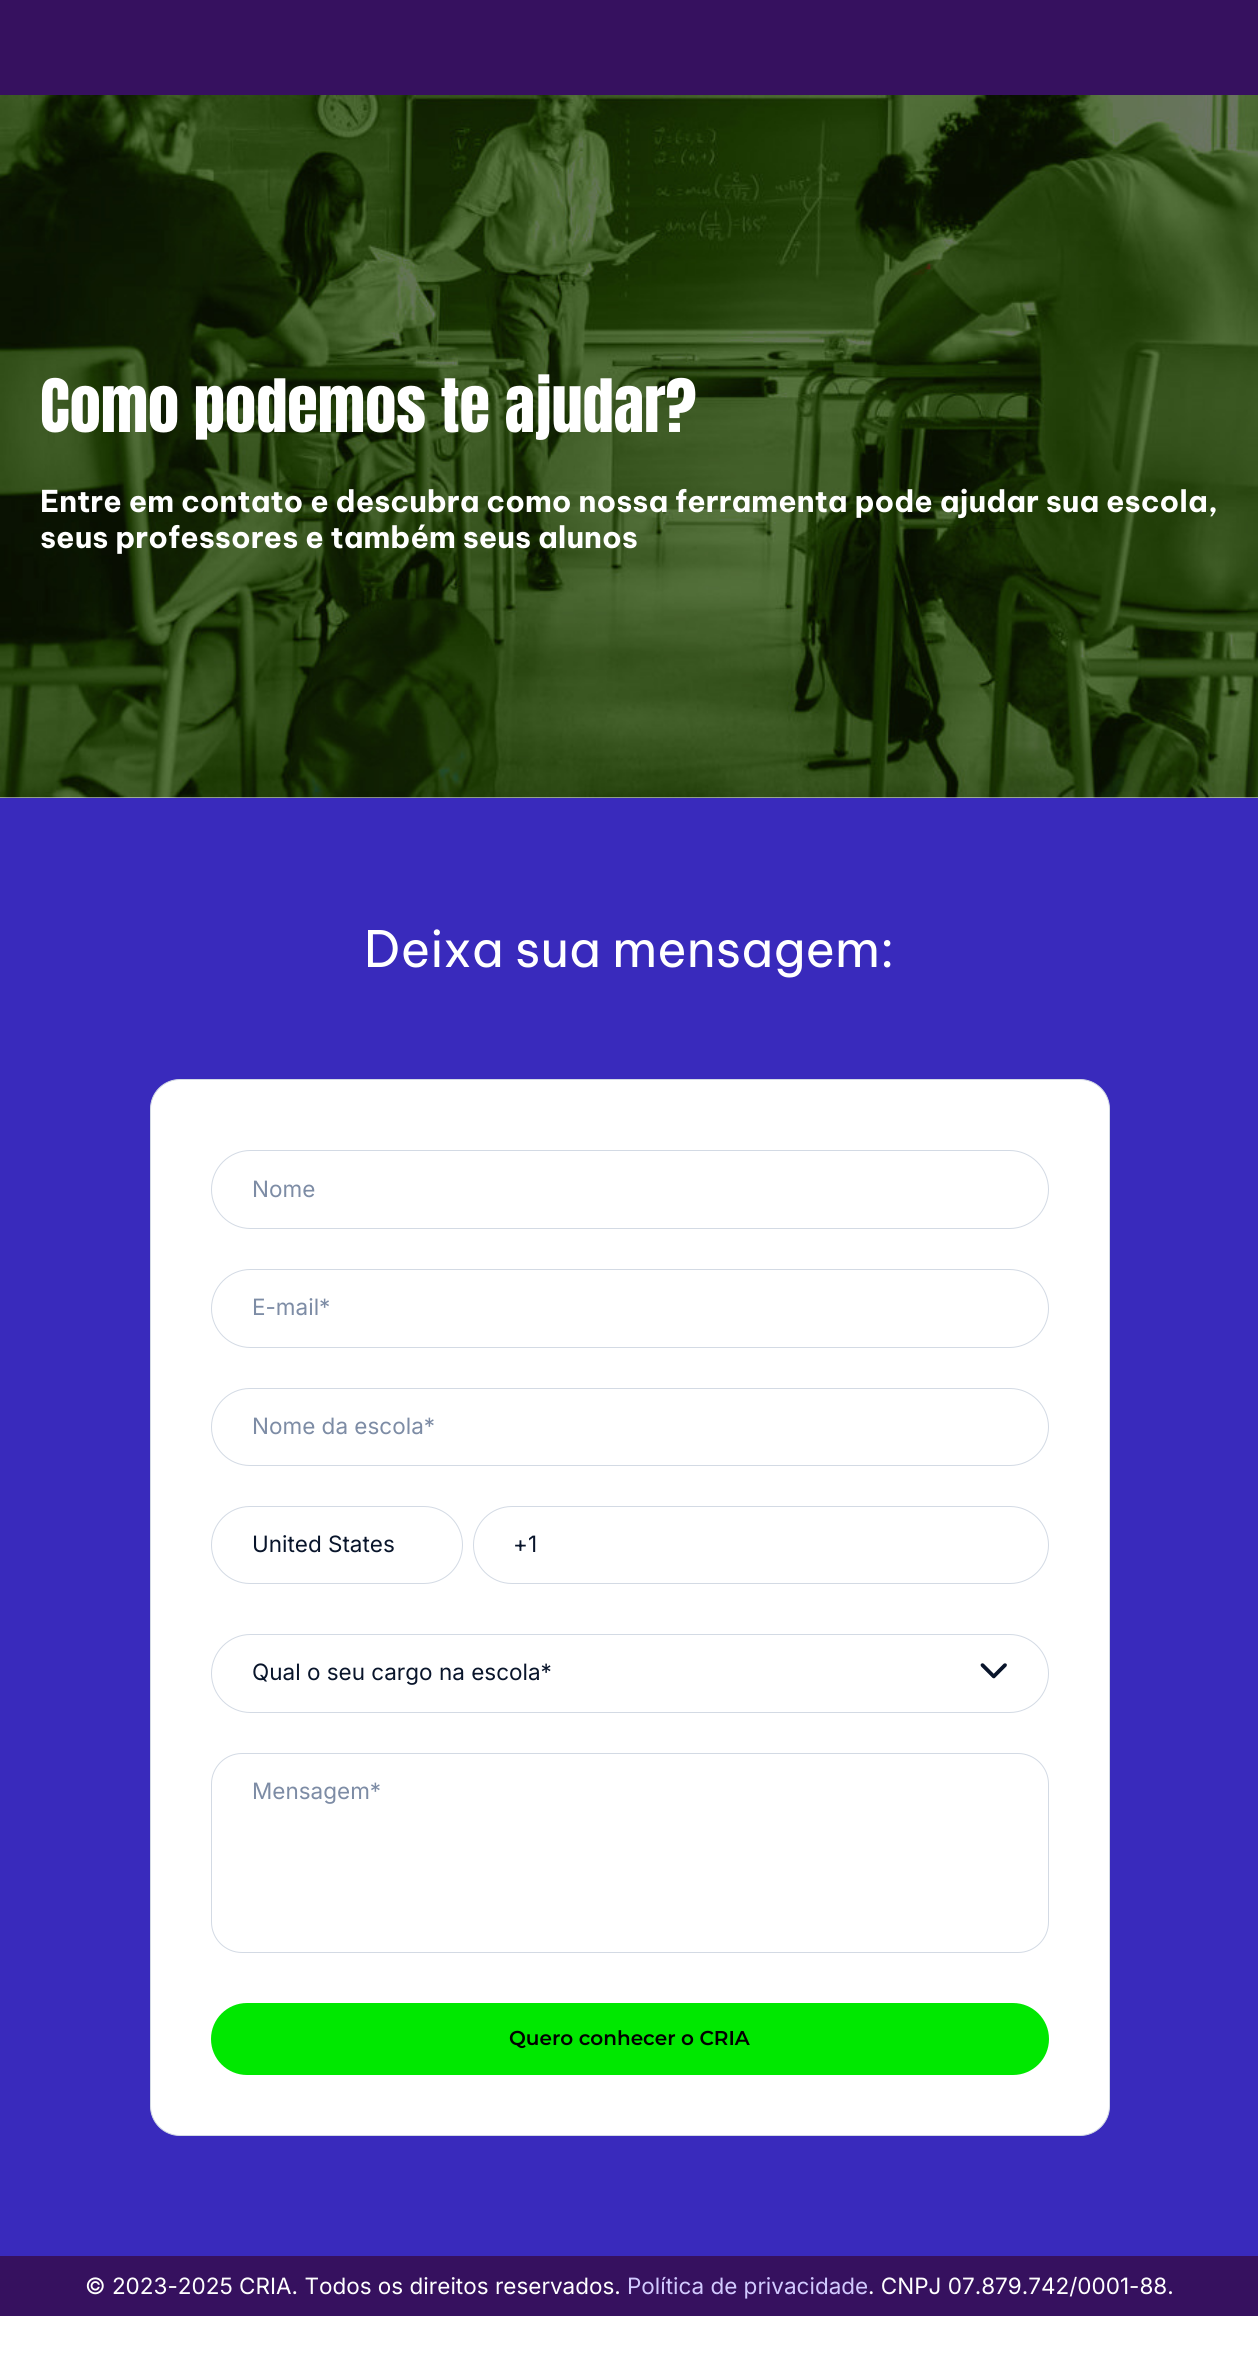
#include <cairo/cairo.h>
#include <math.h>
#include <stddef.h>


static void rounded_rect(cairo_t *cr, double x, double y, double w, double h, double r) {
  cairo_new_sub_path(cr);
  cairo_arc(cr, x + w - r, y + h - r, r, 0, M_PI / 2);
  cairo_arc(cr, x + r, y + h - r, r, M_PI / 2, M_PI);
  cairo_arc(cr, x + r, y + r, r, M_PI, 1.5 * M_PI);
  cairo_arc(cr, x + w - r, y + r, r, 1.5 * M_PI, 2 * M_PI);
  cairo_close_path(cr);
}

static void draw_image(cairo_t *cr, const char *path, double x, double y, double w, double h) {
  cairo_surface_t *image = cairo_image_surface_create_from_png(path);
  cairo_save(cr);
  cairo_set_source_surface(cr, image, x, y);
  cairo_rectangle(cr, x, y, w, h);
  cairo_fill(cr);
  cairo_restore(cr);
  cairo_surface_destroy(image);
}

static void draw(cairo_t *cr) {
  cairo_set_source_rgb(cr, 1, 1, 1);
  cairo_paint(cr);
  cairo_set_source_rgb(cr, 54 / 255.0, 17 / 255.0, 95 / 255.0);
  cairo_rectangle(cr, 0, 0, 1258, 95);
  cairo_fill(cr);
  draw_image(cr, "images/1.png", 0, 95, 1258, 703);
  cairo_set_source_rgb(cr, 57 / 255.0, 42 / 255.0, 188 / 255.0);
  cairo_rectangle(cr, 0, 798, 1258, 1458);
  cairo_fill(cr);
  cairo_set_source_rgb(cr, 1, 1, 1);
  rounded_rect(cr, 150.5, 1079.5, 959, 1056, 29.5);
  cairo_fill_preserve(cr);
  cairo_set_source_rgb(cr, 211 / 255.0, 218 / 255.0, 228 / 255.0);
  cairo_set_line_width(cr, 1);
  cairo_stroke(cr);
  rounded_rect(cr, 211.5, 1150.5, 837, 78, 39);
  cairo_stroke(cr);
  rounded_rect(cr, 211.5, 1269.5, 837, 78, 39);
  cairo_stroke(cr);
  rounded_rect(cr, 211.5, 1388.5, 837, 77, 38.5);
  cairo_stroke(cr);
  rounded_rect(cr, 211.5, 1506.5, 251, 77, 38.5);
  cairo_stroke(cr);
  rounded_rect(cr, 473.5, 1506.5, 575, 77, 38.5);
  cairo_stroke(cr);
  rounded_rect(cr, 211.5, 1634.5, 837, 78, 39);
  cairo_stroke(cr);
  draw_image(cr, "images/2.png", 980, 1663, 27, 16);
  rounded_rect(cr, 211.5, 1753.5, 837, 199, 30.5);
  cairo_stroke(cr);
  cairo_set_source_rgb(cr, 0, 232 / 255.0, 0);
  rounded_rect(cr, 211, 2003, 838, 72, 36);
  cairo_fill(cr);
  cairo_set_source_rgb(cr, 54 / 255.0, 17 / 255.0, 95 / 255.0);
  cairo_rectangle(cr, 0, 2256, 1258, 60);
  cairo_fill(cr);
  cairo_select_font_face(cr, "Anton", CAIRO_FONT_SLANT_NORMAL, CAIRO_FONT_WEIGHT_NORMAL);
  cairo_set_font_size(cr, 62.5);
  cairo_set_source_rgb(cr, 1, 1, 1);
  cairo_move_to(cr, 40, 432);
  cairo_show_text(cr, "Como podemos te ajudar?");
  cairo_select_font_face(cr, "Be Vietnam Pro", CAIRO_FONT_SLANT_NORMAL, CAIRO_FONT_WEIGHT_BOLD);
  cairo_set_font_size(cr, 30);
  cairo_move_to(cr, 40, 512);
  cairo_show_text(cr, "Entre em contato e descubra como nossa ferramenta pode ajudar sua escola,");
  cairo_move_to(cr, 40, 548);
  cairo_show_text(cr, "seus professores e também seus alunos");
  cairo_select_font_face(cr, "Be Vietnam Pro", CAIRO_FONT_SLANT_NORMAL, CAIRO_FONT_WEIGHT_NORMAL);
  cairo_set_font_size(cr, 50);
  cairo_move_to(cr, 364, 967);
  cairo_show_text(cr, "Deixa sua mensagem:");
  cairo_select_font_face(cr, "Inter", CAIRO_FONT_SLANT_NORMAL, CAIRO_FONT_WEIGHT_NORMAL);
  cairo_set_font_size(cr, 22.5);
  cairo_set_source_rgb(cr, 125 / 255.0, 140 / 255.0, 165 / 255.0);
  cairo_move_to(cr, 252, 1197);
  cairo_show_text(cr, "Nome");
  cairo_move_to(cr, 252, 1315);
  cairo_show_text(cr, "E-mail*");
  cairo_move_to(cr, 252, 1434);
  cairo_show_text(cr, "Nome da escola*");
  cairo_set_source_rgb(cr, 9 / 255.0, 21 / 255.0, 43 / 255.0);
  cairo_move_to(cr, 252, 1552);
  cairo_show_text(cr, "United States");
  cairo_move_to(cr, 513, 1552);
  cairo_show_text(cr, "+1");
  cairo_move_to(cr, 252, 1680);
  cairo_show_text(cr, "Qual o seu cargo na escola*");
  cairo_set_source_rgb(cr, 125 / 255.0, 140 / 255.0, 165 / 255.0);
  cairo_move_to(cr, 252, 1799);
  cairo_show_text(cr, "Mensagem*");
  cairo_select_font_face(cr, "Montserrat SemiBold", CAIRO_FONT_SLANT_NORMAL, CAIRO_FONT_WEIGHT_NORMAL);
  cairo_set_font_size(cr, 20);
  cairo_set_source_rgb(cr, 0, 0, 0);
  cairo_move_to(cr, 509, 2045);
  cairo_show_text(cr, "Quero conhecer o CRIA");
  cairo_select_font_face(cr, "Inter", CAIRO_FONT_SLANT_NORMAL, CAIRO_FONT_WEIGHT_NORMAL);
  cairo_set_font_size(cr, 22.5);
  cairo_set_source_rgb(cr, 1, 1, 1);
  cairo_move_to(cr, 85, 2294);
  cairo_show_text(cr, "© 2023-2025 CRIA. Todos os direitos reservados.");
  cairo_set_source_rgb(cr, 210 / 255.0, 202 / 255.0, 1);
  cairo_move_to(cr, 627, 2294);
  cairo_show_text(cr, "Política de privacidade");
  cairo_set_source_rgb(cr, 1, 1, 1);
  cairo_move_to(cr, 868, 2294);
  cairo_show_text(cr, ". CNPJ 07.879.742/0001-88.");
}

int main(void) {
  cairo_surface_t *surface = cairo_image_surface_create(CAIRO_FORMAT_RGB24, 1258, 2366);
  cairo_t *cr = cairo_create(surface);
  cairo_font_options_t *options = cairo_font_options_create();
  cairo_font_options_set_hint_metrics(options, CAIRO_HINT_METRICS_OFF);
  cairo_font_options_set_hint_style(options, CAIRO_HINT_STYLE_NONE);
  cairo_set_font_options(cr, options);
  cairo_set_miter_limit(cr, 4);
  draw(cr);
  cairo_surface_write_to_png(surface, "out.png");
  cairo_font_options_destroy(options);
  cairo_destroy(cr);
  cairo_surface_destroy(surface);
  return 0;
}
